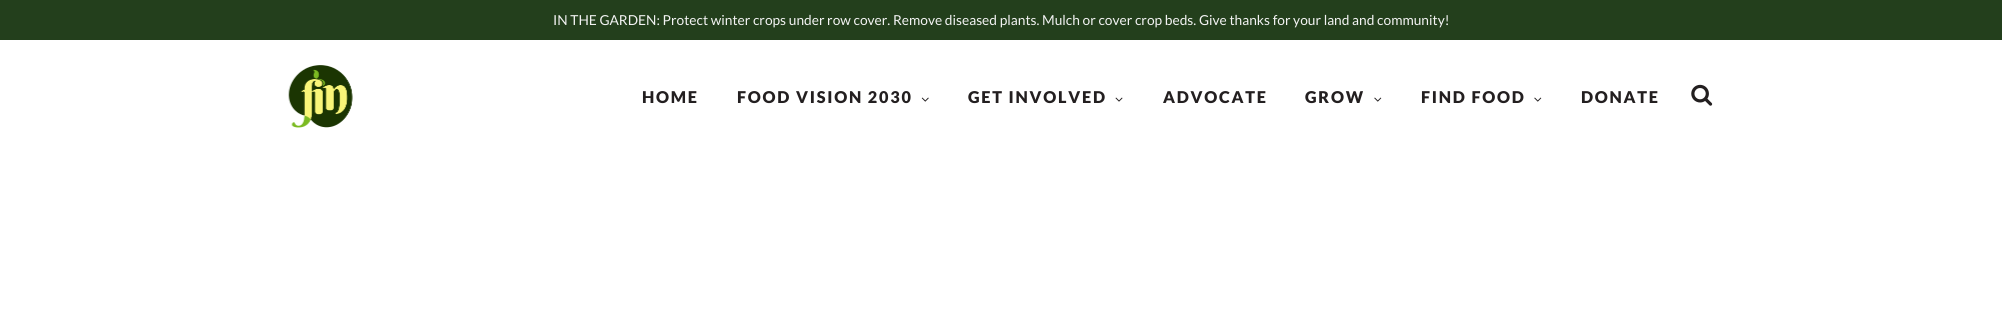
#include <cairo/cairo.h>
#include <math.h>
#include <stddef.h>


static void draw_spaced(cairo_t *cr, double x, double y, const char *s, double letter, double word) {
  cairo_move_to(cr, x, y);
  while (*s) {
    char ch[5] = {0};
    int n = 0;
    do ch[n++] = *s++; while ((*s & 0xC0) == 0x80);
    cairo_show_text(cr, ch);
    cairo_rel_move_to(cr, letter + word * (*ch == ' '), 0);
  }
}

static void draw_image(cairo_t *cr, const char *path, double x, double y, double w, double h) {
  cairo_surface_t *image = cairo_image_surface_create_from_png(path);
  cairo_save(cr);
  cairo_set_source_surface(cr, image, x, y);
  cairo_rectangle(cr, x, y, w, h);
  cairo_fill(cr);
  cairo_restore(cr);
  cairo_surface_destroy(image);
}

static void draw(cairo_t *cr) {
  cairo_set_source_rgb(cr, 1, 1, 1);
  cairo_paint(cr);
  cairo_set_source_rgb(cr, 35 / 255.0, 63 / 255.0, 28 / 255.0);
  cairo_rectangle(cr, 0, 0, 2002, 40);
  cairo_fill(cr);
  draw_image(cr, "images/1.png", 288, 65, 65, 63);
  draw_image(cr, "images/2.png", 921, 97, 8, 5);
  draw_image(cr, "images/3.png", 1115, 97, 8, 5);
  draw_image(cr, "images/4.png", 1374, 97, 8, 5);
  draw_image(cr, "images/4.png", 1534, 97, 8, 5);
  draw_image(cr, "images/5.png", 1691, 84, 22, 22);
  cairo_select_font_face(cr, "Lato", CAIRO_FONT_SLANT_NORMAL, CAIRO_FONT_WEIGHT_NORMAL);
  cairo_set_font_size(cr, 13.75);
  cairo_set_source_rgb(cr, 243 / 255.0, 243 / 255.0, 243 / 255.0);
  cairo_move_to(cr, 553, 25);
  cairo_show_text(cr, "IN THE GARDEN: Protect winter crops under row cover. Remove diseased plants. Mulch or cover crop beds. Give thanks for your land and community!");
  cairo_select_font_face(cr, "Lato Black", CAIRO_FONT_SLANT_NORMAL, CAIRO_FONT_WEIGHT_NORMAL);
  cairo_set_font_size(cr, 16.25);
  cairo_set_source_rgb(cr, 35 / 255.0, 31 / 255.0, 32 / 255.0);
  draw_spaced(cr, 642, 103, "HOME", 1.75, 0);
  draw_spaced(cr, 737, 103, "FOOD VISION 2030", 1.75, 0);
  draw_spaced(cr, 968, 103, "GET INVOLVED", 1.75, 0);
  draw_spaced(cr, 1163, 103, "ADVOCATE", 1.75, 0);
  draw_spaced(cr, 1305, 103, "GROW", 1.75, 0);
  draw_spaced(cr, 1421, 103, "FIND FOOD", 1.75, 0);
  draw_spaced(cr, 1581, 103, "DONATE", 1.75, 0);
}

int main(void) {
  cairo_surface_t *surface = cairo_image_surface_create(CAIRO_FORMAT_RGB24, 2002, 334);
  cairo_t *cr = cairo_create(surface);
  cairo_font_options_t *options = cairo_font_options_create();
  cairo_font_options_set_hint_metrics(options, CAIRO_HINT_METRICS_OFF);
  cairo_font_options_set_hint_style(options, CAIRO_HINT_STYLE_NONE);
  cairo_set_font_options(cr, options);
  cairo_set_miter_limit(cr, 4);
  draw(cr);
  cairo_surface_write_to_png(surface, "out.png");
  cairo_font_options_destroy(options);
  cairo_destroy(cr);
  cairo_surface_destroy(surface);
  return 0;
}
